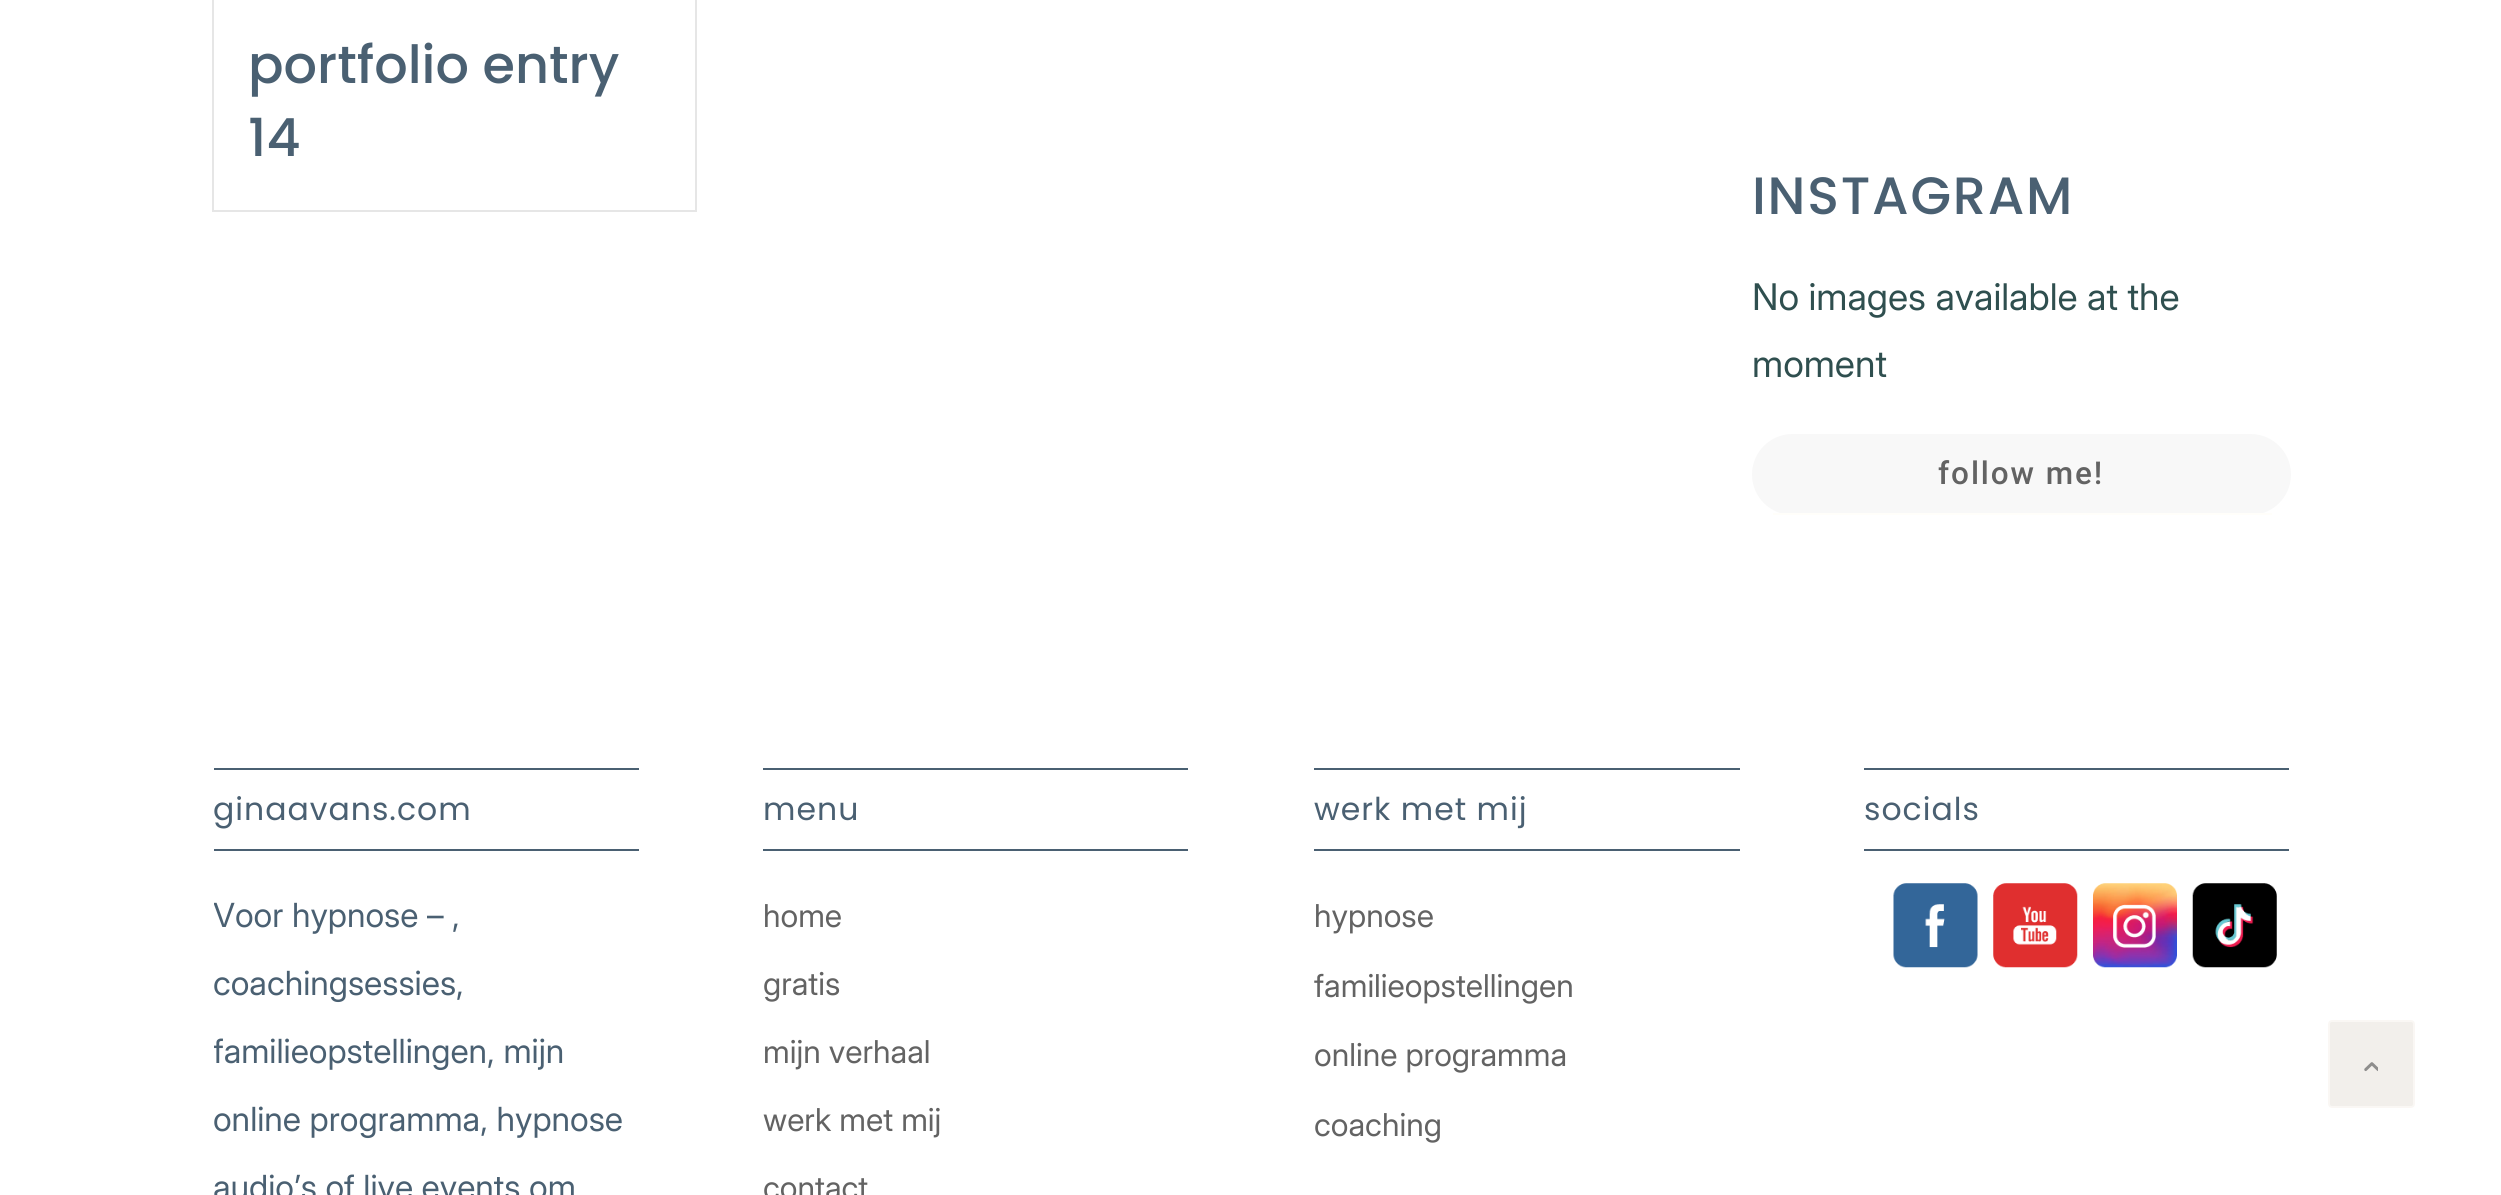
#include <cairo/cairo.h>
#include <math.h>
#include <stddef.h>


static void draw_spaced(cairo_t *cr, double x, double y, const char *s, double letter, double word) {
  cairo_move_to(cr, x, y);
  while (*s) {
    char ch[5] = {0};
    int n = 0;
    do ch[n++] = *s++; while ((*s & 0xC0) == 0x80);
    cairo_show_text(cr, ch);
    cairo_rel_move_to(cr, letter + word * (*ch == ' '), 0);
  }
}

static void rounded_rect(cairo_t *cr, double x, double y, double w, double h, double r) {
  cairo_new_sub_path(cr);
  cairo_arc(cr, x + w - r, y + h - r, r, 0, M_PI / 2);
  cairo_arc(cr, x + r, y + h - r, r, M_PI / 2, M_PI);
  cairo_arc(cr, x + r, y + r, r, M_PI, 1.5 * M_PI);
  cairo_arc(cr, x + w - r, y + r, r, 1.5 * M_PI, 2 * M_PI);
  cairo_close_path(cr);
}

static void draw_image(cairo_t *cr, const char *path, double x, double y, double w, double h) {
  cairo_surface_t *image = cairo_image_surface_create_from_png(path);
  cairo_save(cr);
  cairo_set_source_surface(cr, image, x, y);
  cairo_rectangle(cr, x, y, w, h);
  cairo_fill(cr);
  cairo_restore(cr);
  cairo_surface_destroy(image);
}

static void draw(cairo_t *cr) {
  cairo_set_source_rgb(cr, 1, 1, 1);
  cairo_paint(cr);
  cairo_rectangle(cr, 213, -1, 483, 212);
  cairo_set_source_rgb(cr, 230 / 255.0, 230 / 255.0, 230 / 255.0);
  cairo_stroke(cr);
  cairo_set_source_rgb(cr, 248 / 255.0, 248 / 255.0, 248 / 255.0);
  rounded_rect(cr, 1752, 434, 539, 81, 40.5);
  cairo_fill(cr);
  cairo_set_source_rgb(cr, 1, 254 / 255.0, 250 / 255.0);
  cairo_rectangle(cr, 1773, 513, 499, 2);
  cairo_fill(cr);
  cairo_set_source_rgb(cr, 74 / 255.0, 96 / 255.0, 114 / 255.0);
  cairo_rectangle(cr, 214, 768, 425, 2);
  cairo_fill(cr);
  cairo_rectangle(cr, 214, 849, 425, 2);
  cairo_fill(cr);
  cairo_rectangle(cr, 763, 768, 425, 2);
  cairo_fill(cr);
  cairo_rectangle(cr, 763, 849, 425, 2);
  cairo_fill(cr);
  cairo_rectangle(cr, 1314, 768, 426, 2);
  cairo_fill(cr);
  cairo_rectangle(cr, 1314, 849, 426, 2);
  cairo_fill(cr);
  cairo_rectangle(cr, 1864, 768, 425, 2);
  cairo_fill(cr);
  cairo_rectangle(cr, 1864, 849, 425, 2);
  cairo_fill(cr);
  draw_image(cr, "images/1.png", 1893, 883, 85, 85);
  draw_image(cr, "images/2.png", 1993, 883, 85, 85);
  draw_image(cr, "images/3.png", 2093, 883, 84, 85);
  draw_image(cr, "images/4.png", 2192, 883, 85, 85);
  cairo_set_source_rgb(cr, 242 / 255.0, 239 / 255.0, 235 / 255.0);
  rounded_rect(cr, 2329, 1021, 85, 86, 3);
  cairo_fill_preserve(cr);
  cairo_set_source_rgb(cr, 250 / 255.0, 247 / 255.0, 244 / 255.0);
  cairo_stroke(cr);
  draw_image(cr, "images/5.png", 2364, 1062, 14, 10);
  cairo_select_font_face(cr, "Poppins Medium", CAIRO_FONT_SLANT_NORMAL, CAIRO_FONT_WEIGHT_NORMAL);
  cairo_set_font_size(cr, 52.5);
  cairo_set_source_rgb(cr, 74 / 255.0, 96 / 255.0, 114 / 255.0);
  cairo_move_to(cr, 248, 83);
  cairo_show_text(cr, "portfolio entry");
  cairo_move_to(cr, 248, 156);
  cairo_show_text(cr, "14");
  draw_spaced(cr, 1752, 214, "INSTAGRAM", 1.75, 0);
  cairo_select_font_face(cr, "Inter", CAIRO_FONT_SLANT_NORMAL, CAIRO_FONT_WEIGHT_NORMAL);
  cairo_set_font_size(cr, 36.75);
  cairo_set_source_rgb(cr, 47 / 255.0, 79 / 255.0, 79 / 255.0);
  cairo_move_to(cr, 1752, 310);
  cairo_show_text(cr, "No images available at the");
  cairo_move_to(cr, 1752, 377);
  cairo_show_text(cr, "moment");
  cairo_select_font_face(cr, "Roboto Medium", CAIRO_FONT_SLANT_NORMAL, CAIRO_FONT_WEIGHT_NORMAL);
  cairo_set_font_size(cr, 31.5);
  cairo_set_source_rgb(cr, 99 / 255.0, 99 / 255.0, 99 / 255.0);
  draw_spaced(cr, 1938, 484, "follow me!", 1.9, 0);
  cairo_select_font_face(cr, "Poppins", CAIRO_FONT_SLANT_NORMAL, CAIRO_FONT_WEIGHT_NORMAL);
  cairo_set_source_rgb(cr, 74 / 255.0, 96 / 255.0, 114 / 255.0);
  draw_spaced(cr, 213, 820, "ginaavans.com", 1, 0);
  cairo_save(cr);
  cairo_rectangle(cr, 214, 740, 425, 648);
  cairo_clip(cr);
  cairo_select_font_face(cr, "Inter", CAIRO_FONT_SLANT_NORMAL, CAIRO_FONT_WEIGHT_NORMAL);
  cairo_set_font_size(cr, 33.25);
  cairo_move_to(cr, 213, 927);
  cairo_show_text(cr, "Voor hypnose – ,");
  cairo_restore(cr);
  cairo_select_font_face(cr, "Inter", CAIRO_FONT_SLANT_NORMAL, CAIRO_FONT_WEIGHT_NORMAL);
  cairo_set_font_size(cr, 33.25);
  cairo_move_to(cr, 213, 995);
  cairo_show_text(cr, "coachingsessies,");
  cairo_save(cr);
  cairo_rectangle(cr, 214, 740, 425, 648);
  cairo_clip(cr);
  cairo_move_to(cr, 213, 1063);
  cairo_show_text(cr, "familieopstellingen, mijn");
  cairo_restore(cr);
  cairo_move_to(cr, 213, 1131);
  cairo_show_text(cr, "online programma, hypnose");
  cairo_move_to(cr, 213, 1199);
  cairo_show_text(cr, "audio’s of live events om");
  cairo_select_font_face(cr, "Poppins", CAIRO_FONT_SLANT_NORMAL, CAIRO_FONT_WEIGHT_NORMAL);
  cairo_set_font_size(cr, 31.5);
  draw_spaced(cr, 763, 820, "menu", 1, 0);
  cairo_select_font_face(cr, "Inter", CAIRO_FONT_SLANT_NORMAL, CAIRO_FONT_WEIGHT_NORMAL);
  cairo_set_source_rgb(cr, 99 / 255.0, 99 / 255.0, 99 / 255.0);
  cairo_move_to(cr, 763, 927);
  cairo_show_text(cr, "home");
  cairo_move_to(cr, 763, 995);
  cairo_show_text(cr, "gratis");
  cairo_move_to(cr, 763, 1063);
  cairo_show_text(cr, "mijn verhaal");
  cairo_move_to(cr, 763, 1131);
  cairo_show_text(cr, "werk met mij");
  cairo_move_to(cr, 763, 1199);
  cairo_show_text(cr, "contact");
  cairo_select_font_face(cr, "Poppins", CAIRO_FONT_SLANT_NORMAL, CAIRO_FONT_WEIGHT_NORMAL);
  cairo_set_source_rgb(cr, 74 / 255.0, 96 / 255.0, 114 / 255.0);
  draw_spaced(cr, 1314, 820, "werk met mij", 1, 0);
  cairo_select_font_face(cr, "Inter", CAIRO_FONT_SLANT_NORMAL, CAIRO_FONT_WEIGHT_NORMAL);
  cairo_set_source_rgb(cr, 99 / 255.0, 99 / 255.0, 99 / 255.0);
  cairo_move_to(cr, 1314, 927);
  cairo_show_text(cr, "hypnose");
  cairo_save(cr);
  cairo_rectangle(cr, 1314, 740, 426, 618);
  cairo_clip(cr);
  cairo_move_to(cr, 1314, 997);
  cairo_show_text(cr, "familieopstellingen");
  cairo_restore(cr);
  cairo_move_to(cr, 1314, 1066);
  cairo_show_text(cr, "online programma");
  cairo_move_to(cr, 1314, 1136);
  cairo_show_text(cr, "coaching");
  cairo_select_font_face(cr, "Poppins", CAIRO_FONT_SLANT_NORMAL, CAIRO_FONT_WEIGHT_NORMAL);
  cairo_set_source_rgb(cr, 74 / 255.0, 96 / 255.0, 114 / 255.0);
  draw_spaced(cr, 1864, 820, "socials", 1, 0);
}

int main(void) {
  cairo_surface_t *surface = cairo_image_surface_create(CAIRO_FORMAT_RGB24, 2501, 1195);
  cairo_t *cr = cairo_create(surface);
  cairo_font_options_t *options = cairo_font_options_create();
  cairo_font_options_set_hint_metrics(options, CAIRO_HINT_METRICS_OFF);
  cairo_font_options_set_hint_style(options, CAIRO_HINT_STYLE_NONE);
  cairo_set_font_options(cr, options);
  cairo_set_miter_limit(cr, 4);
  draw(cr);
  cairo_surface_write_to_png(surface, "out.png");
  cairo_font_options_destroy(options);
  cairo_destroy(cr);
  cairo_surface_destroy(surface);
  return 0;
}
